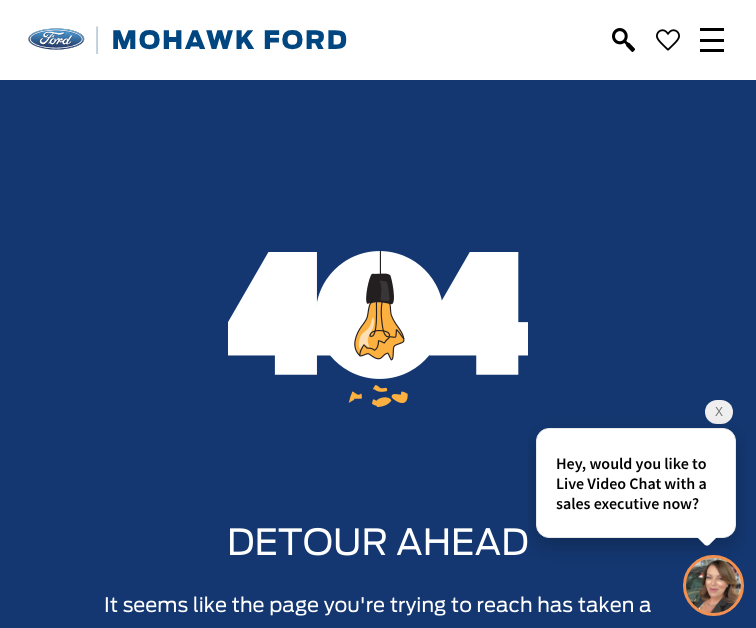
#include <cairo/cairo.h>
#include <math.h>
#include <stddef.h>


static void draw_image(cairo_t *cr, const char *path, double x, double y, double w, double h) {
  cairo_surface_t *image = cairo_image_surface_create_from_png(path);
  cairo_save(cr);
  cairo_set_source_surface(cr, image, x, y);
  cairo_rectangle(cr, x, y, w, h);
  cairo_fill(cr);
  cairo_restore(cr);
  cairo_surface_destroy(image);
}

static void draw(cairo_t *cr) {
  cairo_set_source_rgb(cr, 1, 1, 1);
  cairo_paint(cr);
  draw_image(cr, "images/2.png", 28, 26, 319, 28);
  draw_image(cr, "images/3.png", 612, 28, 23, 24);
  draw_image(cr, "images/4.png", 656, 29, 24, 22);
  cairo_set_source_rgb(cr, 0, 0, 0);
  cairo_rectangle(cr, 700, 28, 24, 3);
  cairo_fill(cr);
  cairo_rectangle(cr, 700, 39, 24, 3);
  cairo_fill(cr);
  cairo_rectangle(cr, 700, 49, 24, 3);
  cairo_fill(cr);
  cairo_set_source_rgb(cr, 20 / 255.0, 55 / 255.0, 113 / 255.0);
  cairo_rectangle(cr, 0, 80, 756, 548);
  cairo_fill(cr);
  draw_image(cr, "images/5.png", 228, 251, 300, 156);
  cairo_select_font_face(cr, "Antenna", CAIRO_FONT_SLANT_NORMAL, CAIRO_FONT_WEIGHT_NORMAL);
  cairo_set_font_size(cr, 36);
  cairo_set_source_rgb(cr, 1, 1, 1);
  cairo_move_to(cr, 227, 555);
  cairo_show_text(cr, "DETOUR AHEAD");
  cairo_set_font_size(cr, 20);
  cairo_move_to(cr, 104, 612);
  cairo_show_text(cr, "It seems like the page you're trying to reach has taken a");
  draw_image(cr, "images/1.png", 528, 400, 218, 216);
}

int main(void) {
  cairo_surface_t *surface = cairo_image_surface_create(CAIRO_FORMAT_RGB24, 756, 628);
  cairo_t *cr = cairo_create(surface);
  cairo_font_options_t *options = cairo_font_options_create();
  cairo_font_options_set_hint_metrics(options, CAIRO_HINT_METRICS_OFF);
  cairo_font_options_set_hint_style(options, CAIRO_HINT_STYLE_NONE);
  cairo_set_font_options(cr, options);
  cairo_set_miter_limit(cr, 4);
  draw(cr);
  cairo_surface_write_to_png(surface, "out.png");
  cairo_font_options_destroy(options);
  cairo_destroy(cr);
  cairo_surface_destroy(surface);
  return 0;
}
